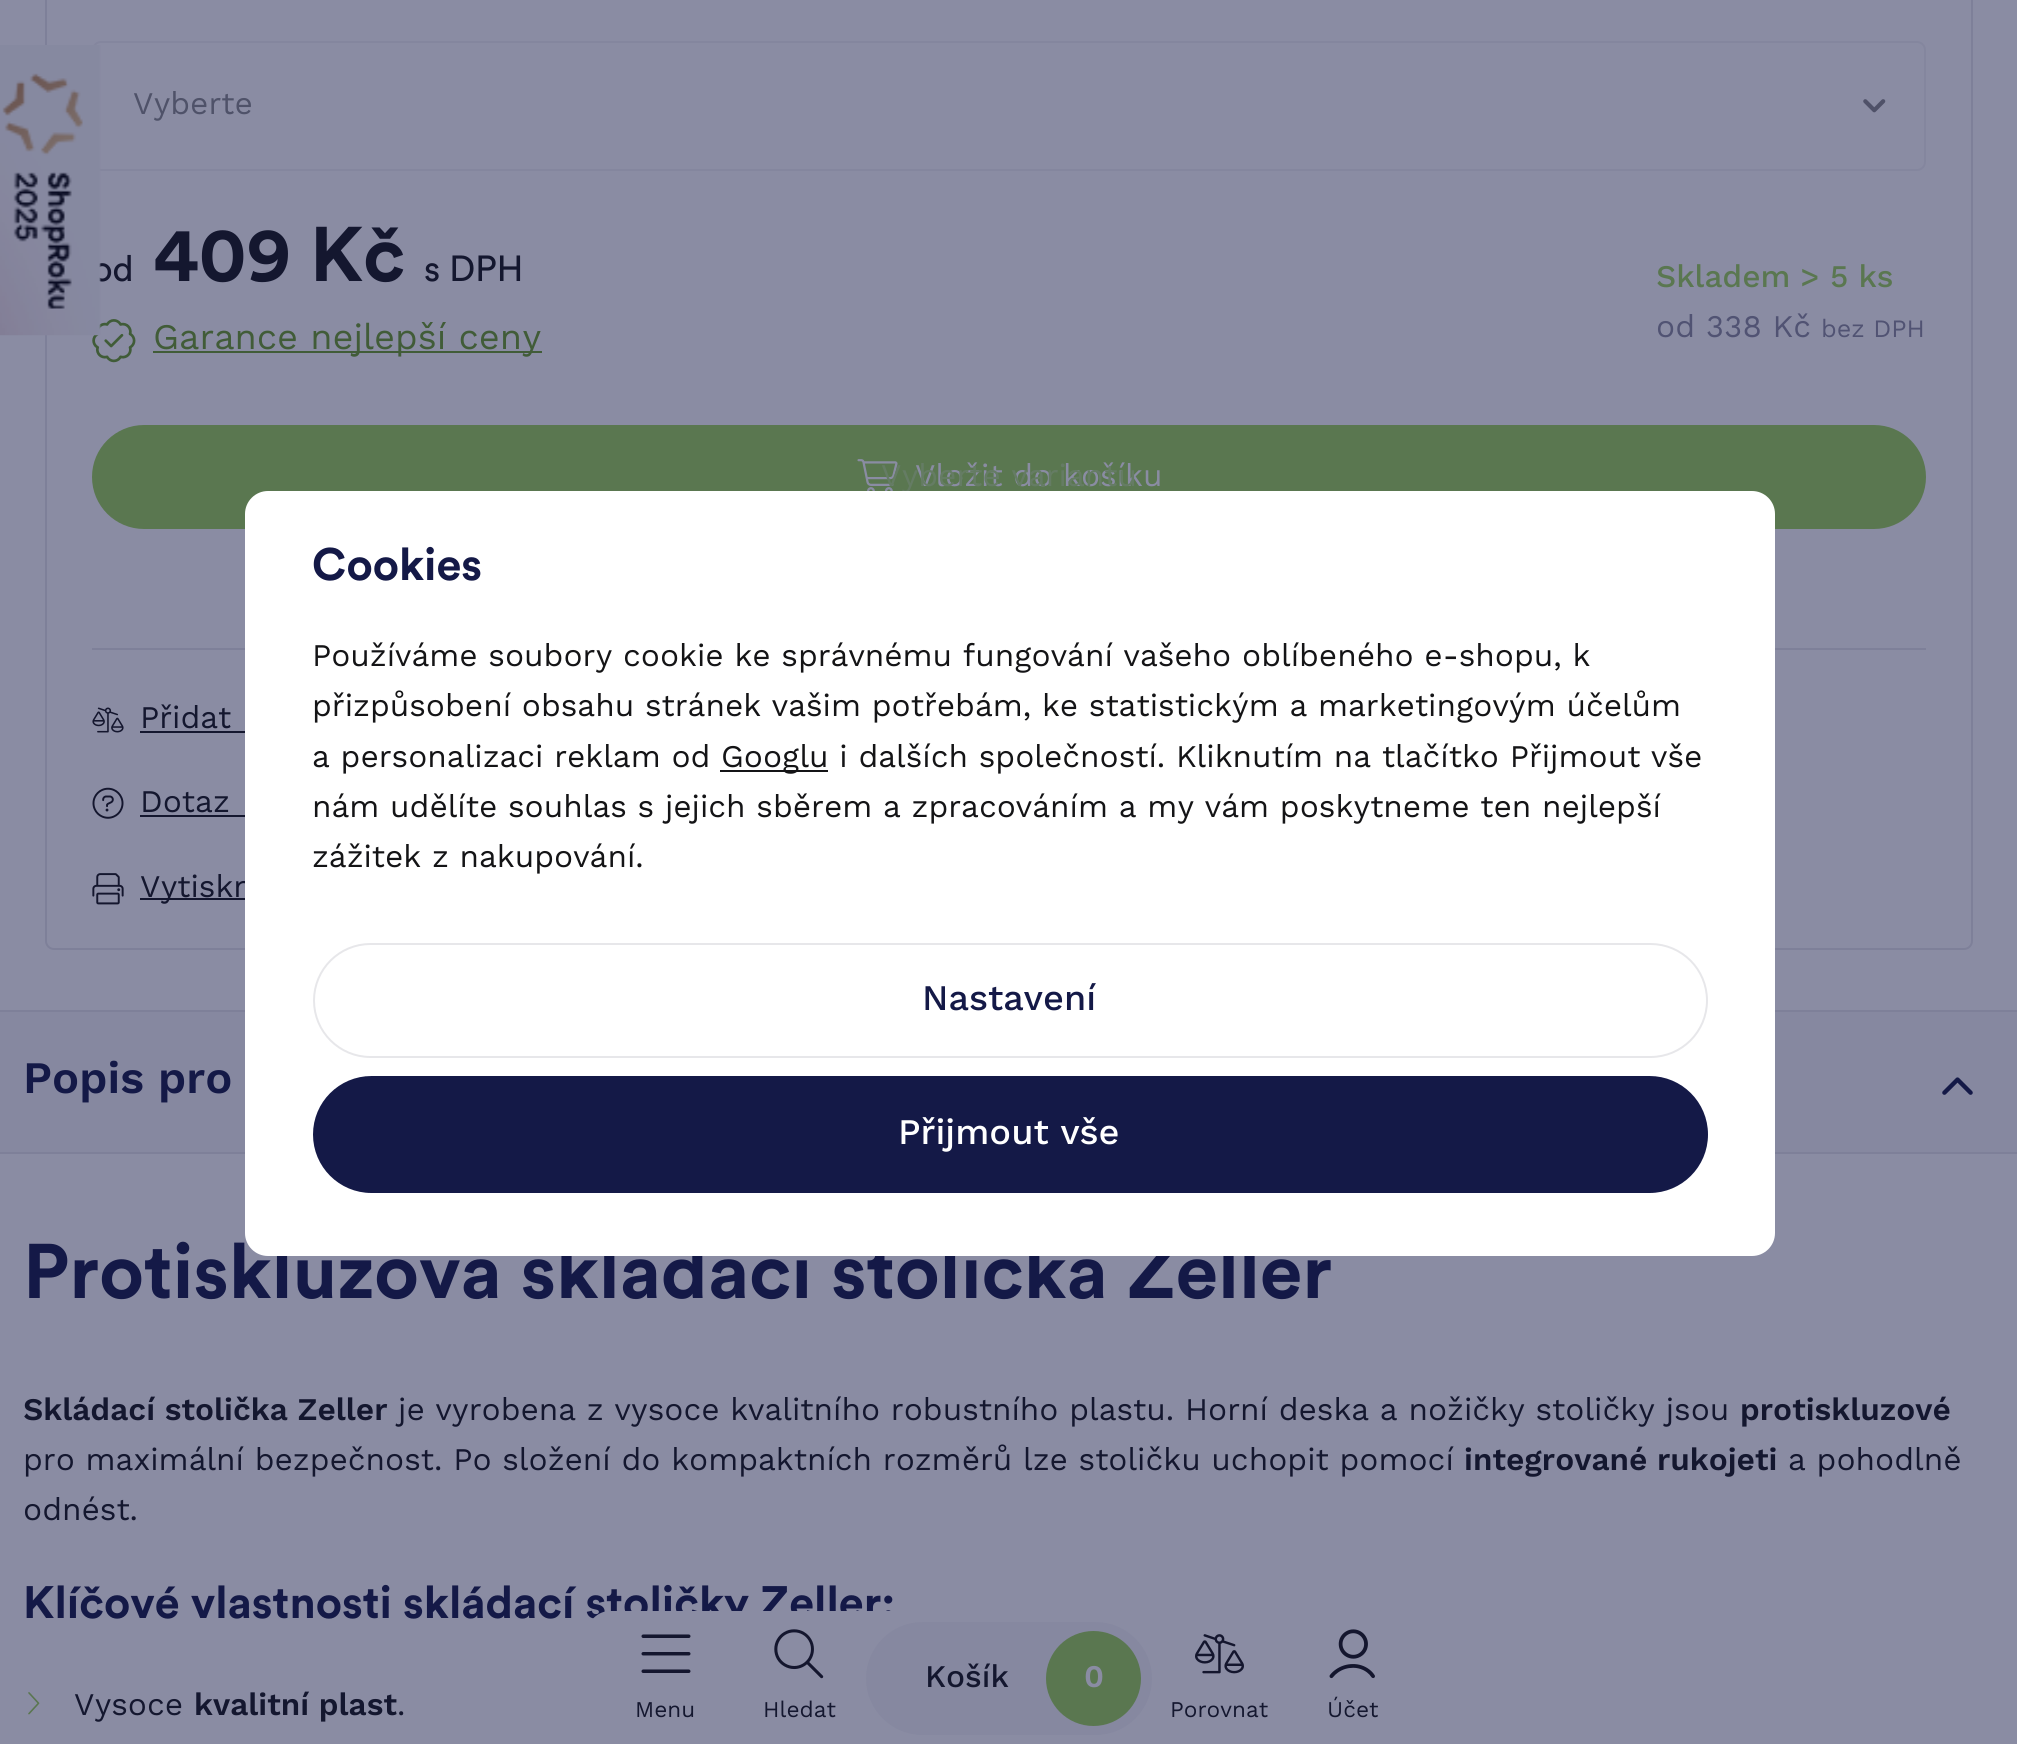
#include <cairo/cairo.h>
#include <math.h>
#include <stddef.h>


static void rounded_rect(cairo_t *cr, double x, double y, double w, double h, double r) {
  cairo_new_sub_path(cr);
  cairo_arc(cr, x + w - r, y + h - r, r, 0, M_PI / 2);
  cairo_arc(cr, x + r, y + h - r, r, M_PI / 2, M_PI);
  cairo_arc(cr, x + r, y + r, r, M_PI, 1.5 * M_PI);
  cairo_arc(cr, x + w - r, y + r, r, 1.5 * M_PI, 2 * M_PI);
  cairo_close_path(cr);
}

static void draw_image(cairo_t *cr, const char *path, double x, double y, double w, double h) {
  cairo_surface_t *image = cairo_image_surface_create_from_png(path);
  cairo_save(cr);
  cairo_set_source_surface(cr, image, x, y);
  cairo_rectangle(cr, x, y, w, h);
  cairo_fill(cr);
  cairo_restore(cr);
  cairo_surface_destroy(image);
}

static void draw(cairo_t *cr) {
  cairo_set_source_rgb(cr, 138 / 255.0, 140 / 255.0, 163 / 255.0);
  cairo_paint(cr);
  rounded_rect(cr, 46, -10, 1926, 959, 8);
  cairo_set_source_rgb(cr, 126 / 255.0, 128 / 255.0, 153 / 255.0);
  cairo_stroke(cr);
  rounded_rect(cr, 93, 42, 1832, 128, 8);
  cairo_set_source_rgb(cr, 132 / 255.0, 134 / 255.0, 158 / 255.0);
  cairo_stroke(cr);
  draw_image(cr, "images/2.png", 1863, 99, 23, 14);
  draw_image(cr, "images/3.png", 92, 319, 44, 44);
  cairo_set_source_rgb(cr, 65 / 255.0, 92 / 255.0, 56 / 255.0);
  cairo_rectangle(cr, 153, 351, 389, 2);
  cairo_fill(cr);
  cairo_set_source_rgb(cr, 90 / 255.0, 119 / 255.0, 80 / 255.0);
  rounded_rect(cr, 92, 425, 1834, 104, 52);
  cairo_fill(cr);
  draw_image(cr, "images/4.png", 857, 459, 41, 32);
  cairo_set_source_rgb(cr, 126 / 255.0, 128 / 255.0, 153 / 255.0);
  cairo_rectangle(cr, 92, 648, 1834, 2);
  cairo_fill(cr);
  draw_image(cr, "images/5.png", 92, 707, 32, 26);
  cairo_set_source_rgb(cr, 20 / 255.0, 23 / 255.0, 47 / 255.0);
  cairo_rectangle(cr, 140, 731, 105, 2);
  cairo_fill(cr);
  draw_image(cr, "images/6.png", 92, 787, 32, 32);
  cairo_rectangle(cr, 140, 815, 105, 2);
  cairo_fill(cr);
  draw_image(cr, "images/7.png", 92, 873, 32, 32);
  cairo_rectangle(cr, 140, 898, 105, 2);
  cairo_fill(cr);
  cairo_set_source_rgb(cr, 134 / 255.0, 136 / 255.0, 160 / 255.0);
  cairo_rectangle(cr, 0, 1012, 2017, 140);
  cairo_fill(cr);
  cairo_set_source_rgb(cr, 126 / 255.0, 128 / 255.0, 153 / 255.0);
  cairo_rectangle(cr, 0, 1010, 2017, 2);
  cairo_fill(cr);
  cairo_rectangle(cr, 0, 1152, 2017, 2);
  cairo_fill(cr);
  draw_image(cr, "images/8.png", 1942, 1077, 31, 18);
  draw_image(cr, "images/9.png", 28, 1692, 12, 23);
  cairo_select_font_face(cr, "Work Sans", CAIRO_FONT_SLANT_NORMAL, CAIRO_FONT_WEIGHT_NORMAL);
  cairo_set_font_size(cr, 31.5);
  cairo_set_source_rgb(cr, 79 / 255.0, 82 / 255.0, 105 / 255.0);
  cairo_move_to(cr, 133, 114);
  cairo_show_text(cr, "Vyberte");
  cairo_select_font_face(cr, "Circular", CAIRO_FONT_SLANT_NORMAL, CAIRO_FONT_WEIGHT_NORMAL);
  cairo_set_font_size(cr, 36);
  cairo_set_source_rgb(cr, 20 / 255.0, 23 / 255.0, 47 / 255.0);
  cairo_move_to(cr, 92, 281);
  cairo_show_text(cr, "od");
  draw_image(cr, "images/1.png", 0, 45, 101, 291);
  cairo_select_font_face(cr, "Circular", CAIRO_FONT_SLANT_NORMAL, CAIRO_FONT_WEIGHT_BOLD);
  cairo_set_font_size(cr, 76.5);
  cairo_move_to(cr, 153, 281);
  cairo_show_text(cr, "409 Kč");
  cairo_select_font_face(cr, "Circular", CAIRO_FONT_SLANT_NORMAL, CAIRO_FONT_WEIGHT_NORMAL);
  cairo_set_font_size(cr, 36);
  cairo_move_to(cr, 424, 281);
  cairo_show_text(cr, "s DPH");
  cairo_select_font_face(cr, "Work Sans", CAIRO_FONT_SLANT_NORMAL, CAIRO_FONT_WEIGHT_NORMAL);
  cairo_set_source_rgb(cr, 65 / 255.0, 92 / 255.0, 56 / 255.0);
  cairo_move_to(cr, 153, 349);
  cairo_show_text(cr, "Garance nejlepší ceny");
  cairo_select_font_face(cr, "Work Sans Medium", CAIRO_FONT_SLANT_NORMAL, CAIRO_FONT_WEIGHT_NORMAL);
  cairo_set_font_size(cr, 31.5);
  cairo_set_source_rgb(cr, 90 / 255.0, 119 / 255.0, 80 / 255.0);
  cairo_move_to(cr, 1656, 287);
  cairo_show_text(cr, "Skladem > 5 ks");
  cairo_select_font_face(cr, "Work Sans", CAIRO_FONT_SLANT_NORMAL, CAIRO_FONT_WEIGHT_NORMAL);
  cairo_set_source_rgb(cr, 81 / 255.0, 83 / 255.0, 115 / 255.0);
  cairo_move_to(cr, 1656, 337);
  cairo_show_text(cr, "od 338 Kč");
  cairo_set_font_size(cr, 25);
  cairo_move_to(cr, 1821, 337);
  cairo_show_text(cr, "bez DPH");
  cairo_set_font_size(cr, 31.5);
  cairo_set_source_rgb(cr, 138 / 255.0, 140 / 255.0, 163 / 255.0);
  cairo_move_to(cr, 915, 486);
  cairo_show_text(cr, "Vložit do košíku");
  cairo_set_source_rgb(cr, 101 / 255.0, 124 / 255.0, 100 / 255.0);
  cairo_move_to(cr, 881, 486);
  cairo_show_text(cr, "Vyberte variantu");
  cairo_set_source_rgb(cr, 20 / 255.0, 23 / 255.0, 47 / 255.0);
  cairo_move_to(cr, 140, 728);
  cairo_show_text(cr, "Přidat");
  cairo_move_to(cr, 140, 812);
  cairo_show_text(cr, "Dotaz");
  cairo_move_to(cr, 140, 897);
  cairo_show_text(cr, "Vytiskn");
  cairo_select_font_face(cr, "Work Sans SemiBold", CAIRO_FONT_SLANT_NORMAL, CAIRO_FONT_WEIGHT_NORMAL);
  cairo_set_font_size(cr, 45);
  cairo_set_source_rgb(cr, 20 / 255.0, 25 / 255.0, 71 / 255.0);
  cairo_move_to(cr, 23, 1093);
  cairo_show_text(cr, "Popis pro");
  cairo_select_font_face(cr, "Circular", CAIRO_FONT_SLANT_NORMAL, CAIRO_FONT_WEIGHT_BOLD);
  cairo_set_font_size(cr, 76.5);
  cairo_move_to(cr, 23, 1298);
  cairo_show_text(cr, "Protiskluzová skládací stolička Zeller");
  cairo_select_font_face(cr, "Work Sans SemiBold", CAIRO_FONT_SLANT_NORMAL, CAIRO_FONT_WEIGHT_NORMAL);
  cairo_set_font_size(cr, 31.5);
  cairo_set_source_rgb(cr, 20 / 255.0, 23 / 255.0, 47 / 255.0);
  cairo_move_to(cr, 23, 1420);
  cairo_show_text(cr, "Skládací stolička Zeller");
  cairo_select_font_face(cr, "Work Sans", CAIRO_FONT_SLANT_NORMAL, CAIRO_FONT_WEIGHT_NORMAL);
  cairo_move_to(cr, 398, 1420);
  cairo_show_text(cr, "je vyrobena z vysoce kvalitního robustního plastu. Horní deska a nožičky stoličky jsou");
  cairo_select_font_face(cr, "Work Sans SemiBold", CAIRO_FONT_SLANT_NORMAL, CAIRO_FONT_WEIGHT_NORMAL);
  cairo_move_to(cr, 1740, 1420);
  cairo_show_text(cr, "protiskluzové");
  cairo_select_font_face(cr, "Work Sans", CAIRO_FONT_SLANT_NORMAL, CAIRO_FONT_WEIGHT_NORMAL);
  cairo_move_to(cr, 23, 1470);
  cairo_show_text(cr, "pro maximální bezpečnost. Po složení do kompaktních rozměrů lze stoličku uchopit pomocí");
  cairo_select_font_face(cr, "Work Sans SemiBold", CAIRO_FONT_SLANT_NORMAL, CAIRO_FONT_WEIGHT_NORMAL);
  cairo_move_to(cr, 1464, 1470);
  cairo_show_text(cr, "integrované rukojeti");
  cairo_select_font_face(cr, "Work Sans", CAIRO_FONT_SLANT_NORMAL, CAIRO_FONT_WEIGHT_NORMAL);
  cairo_move_to(cr, 1788, 1470);
  cairo_show_text(cr, "a pohodlně");
  cairo_move_to(cr, 23, 1520);
  cairo_show_text(cr, "odnést.");
  cairo_select_font_face(cr, "Circular", CAIRO_FONT_SLANT_NORMAL, CAIRO_FONT_WEIGHT_BOLD);
  cairo_set_font_size(cr, 45);
  cairo_set_source_rgb(cr, 20 / 255.0, 25 / 255.0, 71 / 255.0);
  cairo_move_to(cr, 23, 1618);
  cairo_show_text(cr, "Klíčové vlastnosti skládací stoličky Zeller:");
  cairo_select_font_face(cr, "Work Sans", CAIRO_FONT_SLANT_NORMAL, CAIRO_FONT_WEIGHT_NORMAL);
  cairo_set_font_size(cr, 31.5);
  cairo_set_source_rgb(cr, 20 / 255.0, 23 / 255.0, 47 / 255.0);
  cairo_move_to(cr, 74, 1715);
  cairo_show_text(cr, "Vysoce");
  cairo_select_font_face(cr, "Work Sans SemiBold", CAIRO_FONT_SLANT_NORMAL, CAIRO_FONT_WEIGHT_NORMAL);
  cairo_move_to(cr, 194, 1715);
  cairo_show_text(cr, "kvalitní plast");
  cairo_select_font_face(cr, "Work Sans", CAIRO_FONT_SLANT_NORMAL, CAIRO_FONT_WEIGHT_NORMAL);
  cairo_move_to(cr, 397, 1715);
  cairo_show_text(cr, ".");
  cairo_set_source_rgb(cr, 1, 1, 1);
  rounded_rect(cr, 245, 491, 1530, 765, 23);
  cairo_fill(cr);
  cairo_select_font_face(cr, "Circular", CAIRO_FONT_SLANT_NORMAL, CAIRO_FONT_WEIGHT_BOLD);
  cairo_set_font_size(cr, 45);
  cairo_set_source_rgb(cr, 20 / 255.0, 25 / 255.0, 71 / 255.0);
  cairo_move_to(cr, 312, 580);
  cairo_show_text(cr, "Cookies");
  cairo_select_font_face(cr, "Work Sans", CAIRO_FONT_SLANT_NORMAL, CAIRO_FONT_WEIGHT_NORMAL);
  cairo_set_font_size(cr, 31.5);
  cairo_set_source_rgb(cr, 20 / 255.0, 20 / 255.0, 22 / 255.0);
  cairo_move_to(cr, 312, 666);
  cairo_show_text(cr, "Používáme soubory cookie ke správnému fungování vašeho oblíbeného e-shopu, k");
  cairo_move_to(cr, 312, 716);
  cairo_show_text(cr, "přizpůsobení obsahu stránek vašim potřebám, ke statistickým a marketingovým účelům");
  cairo_move_to(cr, 312, 767);
  cairo_show_text(cr, "a personalizaci reklam od");
  cairo_rectangle(cr, 720, 770, 108, 2);
  cairo_fill(cr);
  cairo_move_to(cr, 721, 767);
  cairo_show_text(cr, "Googlu i dalších společností. Kliknutím na tlačítko Přijmout vše");
  cairo_move_to(cr, 312, 817);
  cairo_show_text(cr, "nám udělíte souhlas s jejich sběrem a zpracováním a my vám poskytneme ten nejlepší");
  cairo_move_to(cr, 312, 867);
  cairo_show_text(cr, "zážitek z nakupování.");
  rounded_rect(cr, 314, 944, 1393, 113, 56.5);
  cairo_set_source_rgb(cr, 231 / 255.0, 231 / 255.0, 234 / 255.0);
  cairo_stroke(cr);
  cairo_select_font_face(cr, "Work Sans Medium", CAIRO_FONT_SLANT_NORMAL, CAIRO_FONT_WEIGHT_NORMAL);
  cairo_set_font_size(cr, 36);
  cairo_set_source_rgb(cr, 20 / 255.0, 25 / 255.0, 71 / 255.0);
  cairo_move_to(cr, 922, 1010);
  cairo_show_text(cr, "Nastavení");
  rounded_rect(cr, 314, 1077, 1393, 115, 57.5);
  cairo_fill_preserve(cr);
  cairo_stroke(cr);
  cairo_set_source_rgb(cr, 1, 1, 1);
  cairo_move_to(cr, 898, 1144);
  cairo_show_text(cr, "Přijmout vše");
  cairo_set_source_rgb(cr, 138 / 255.0, 140 / 255.0, 163 / 255.0);
  cairo_new_path(cr);
  cairo_move_to(cr, 610, 1611);
  cairo_line_to(cr, 1408, 1611);
  cairo_curve_to(cr, 1420.5, 1611, 1431, 1621.5, 1431, 1634);
  cairo_line_to(cr, 1431, 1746);
  cairo_line_to(cr, 587, 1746);
  cairo_line_to(cr, 587, 1634);
  cairo_curve_to(cr, 587, 1621.5, 597.5, 1611, 610, 1611);
  cairo_close_path(cr);
  cairo_fill(cr);
  cairo_set_source_rgb(cr, 134 / 255.0, 136 / 255.0, 160 / 255.0);
  rounded_rect(cr, 866, 1622, 286, 113, 56.5);
  cairo_fill(cr);
  cairo_set_font_size(cr, 31.5);
  cairo_set_source_rgb(cr, 20 / 255.0, 23 / 255.0, 47 / 255.0);
  cairo_move_to(cr, 925, 1687);
  cairo_show_text(cr, "Košík");
  cairo_set_source_rgb(cr, 90 / 255.0, 119 / 255.0, 80 / 255.0);
  cairo_new_path(cr);
  cairo_arc(cr, 1093.5, 1678.5, 47.5, 0, 2 * M_PI);
  cairo_fill(cr);
  cairo_select_font_face(cr, "Work Sans SemiBold", CAIRO_FONT_SLANT_NORMAL, CAIRO_FONT_WEIGHT_NORMAL);
  cairo_set_source_rgb(cr, 138 / 255.0, 140 / 255.0, 163 / 255.0);
  cairo_move_to(cr, 1084, 1687);
  cairo_show_text(cr, "0");
  draw_image(cr, "images/10.png", 641, 1634, 50, 39);
  cairo_select_font_face(cr, "Work Sans", CAIRO_FONT_SLANT_NORMAL, CAIRO_FONT_WEIGHT_NORMAL);
  cairo_set_font_size(cr, 22.5);
  cairo_set_source_rgb(cr, 20 / 255.0, 23 / 255.0, 47 / 255.0);
  cairo_move_to(cr, 635, 1717);
  cairo_show_text(cr, "Menu");
  draw_image(cr, "images/11.png", 774, 1629, 50, 50);
  cairo_move_to(cr, 763, 1717);
  cairo_show_text(cr, "Hledat");
  draw_image(cr, "images/12.png", 1195, 1634, 49, 40);
  cairo_move_to(cr, 1170, 1717);
  cairo_show_text(cr, "Porovnat");
  draw_image(cr, "images/13.png", 1329, 1629, 46, 50);
  cairo_move_to(cr, 1327, 1717);
  cairo_show_text(cr, "Účet");
}

int main(void) {
  cairo_surface_t *surface = cairo_image_surface_create(CAIRO_FORMAT_RGB24, 2017, 1744);
  cairo_t *cr = cairo_create(surface);
  cairo_font_options_t *options = cairo_font_options_create();
  cairo_font_options_set_hint_metrics(options, CAIRO_HINT_METRICS_OFF);
  cairo_font_options_set_hint_style(options, CAIRO_HINT_STYLE_NONE);
  cairo_set_font_options(cr, options);
  cairo_set_miter_limit(cr, 4);
  draw(cr);
  cairo_surface_write_to_png(surface, "out.png");
  cairo_font_options_destroy(options);
  cairo_destroy(cr);
  cairo_surface_destroy(surface);
  return 0;
}
